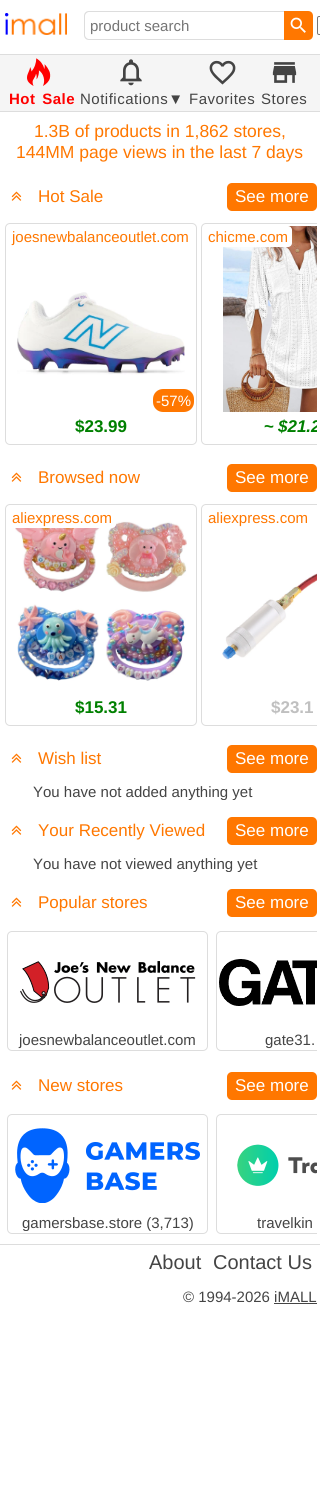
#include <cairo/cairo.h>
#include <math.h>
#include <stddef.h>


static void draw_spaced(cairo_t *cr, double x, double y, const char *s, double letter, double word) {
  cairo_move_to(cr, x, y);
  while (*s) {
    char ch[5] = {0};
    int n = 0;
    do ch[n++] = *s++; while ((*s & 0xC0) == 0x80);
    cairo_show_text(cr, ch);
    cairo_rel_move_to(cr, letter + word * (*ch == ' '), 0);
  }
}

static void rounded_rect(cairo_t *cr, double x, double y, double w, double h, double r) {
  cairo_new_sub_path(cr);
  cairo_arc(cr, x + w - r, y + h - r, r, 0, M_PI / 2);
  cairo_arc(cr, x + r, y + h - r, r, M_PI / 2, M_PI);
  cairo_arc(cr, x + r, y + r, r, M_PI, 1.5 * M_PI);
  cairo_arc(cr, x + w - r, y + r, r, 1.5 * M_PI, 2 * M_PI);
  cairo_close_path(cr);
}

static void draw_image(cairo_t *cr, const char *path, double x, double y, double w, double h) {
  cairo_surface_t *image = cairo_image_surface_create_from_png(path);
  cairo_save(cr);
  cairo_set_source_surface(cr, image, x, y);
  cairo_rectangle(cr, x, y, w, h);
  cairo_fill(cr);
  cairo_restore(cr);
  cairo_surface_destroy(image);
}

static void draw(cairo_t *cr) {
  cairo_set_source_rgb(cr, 1, 1, 1);
  cairo_paint(cr);
  draw_image(cr, "images/1.png", 5, 13, 62, 22);
  cairo_set_source_rgb(cr, 221 / 255.0, 221 / 255.0, 221 / 255.0);
  cairo_set_fill_rule(cr, CAIRO_FILL_RULE_EVEN_ODD);
  cairo_new_path(cr);
  cairo_move_to(cr, 89, 11);
  cairo_line_to(cr, 284, 11);
  cairo_line_to(cr, 284, 40);
  cairo_line_to(cr, 89, 40);
  cairo_curve_to(cr, 86, 40, 84, 38, 84, 35);
  cairo_line_to(cr, 84, 16);
  cairo_curve_to(cr, 84, 13, 86, 11, 89, 11);
  cairo_close_path(cr);
  cairo_move_to(cr, 89, 12);
  cairo_line_to(cr, 284, 12);
  cairo_line_to(cr, 284, 39);
  cairo_line_to(cr, 89, 39);
  cairo_curve_to(cr, 87, 39, 85, 37, 85, 35);
  cairo_line_to(cr, 85, 16);
  cairo_curve_to(cr, 85, 14, 87, 12, 89, 12);
  cairo_close_path(cr);
  cairo_fill(cr);
  cairo_set_source_rgb(cr, 1, 119 / 255.0, 0);
  cairo_new_path(cr);
  cairo_move_to(cr, 284, 11);
  cairo_line_to(cr, 308, 11);
  cairo_curve_to(cr, 311, 11, 313, 13, 313, 16);
  cairo_line_to(cr, 313, 35);
  cairo_curve_to(cr, 313, 38, 311, 40, 308, 40);
  cairo_line_to(cr, 284, 40);
  cairo_close_path(cr);
  cairo_fill(cr);
  draw_image(cr, "images/2.png", 290, 17, 16, 16);
  rounded_rect(cr, 317.5, 16.5, 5, 18, 1.5);
  cairo_set_source_rgb(cr, 118 / 255.0, 118 / 255.0, 118 / 255.0);
  cairo_set_line_width(cr, 1);
  cairo_stroke(cr);
  cairo_set_source_rgb(cr, 245 / 255.0, 245 / 255.0, 245 / 255.0);
  cairo_rectangle(cr, 0, 55, 320, 56);
  cairo_fill(cr);
  cairo_set_source_rgb(cr, 221 / 255.0, 221 / 255.0, 221 / 255.0);
  cairo_rectangle(cr, 0, 54, 320, 1);
  cairo_fill(cr);
  cairo_rectangle(cr, 0, 111, 320, 1);
  cairo_fill(cr);
  draw_image(cr, "images/3.png", 27, 58, 24, 28);
  draw_image(cr, "images/4.png", 120, 59, 22, 27);
  draw_image(cr, "images/5.png", 209, 60, 27, 25);
  draw_image(cr, "images/6.png", 272, 62, 25, 21);
  draw_image(cr, "images/7.png", 11, 191, 11, 10);
  cairo_set_source_rgb(cr, 1, 119 / 255.0, 0);
  rounded_rect(cr, 227, 183, 90, 28, 5);
  cairo_fill(cr);
  rounded_rect(cr, 5.5, 223.5, 191, 221, 4.5);
  cairo_set_source_rgb(cr, 221 / 255.0, 221 / 255.0, 221 / 255.0);
  cairo_stroke(cr);
  draw_image(cr, "images/8.png", 17, 292, 168, 83);
  cairo_set_source_rgb(cr, 1, 119 / 255.0, 0);
  rounded_rect(cr, 153, 389, 41, 23, 10);
  cairo_fill(cr);
  cairo_save(cr);
  cairo_set_fill_rule(cr, CAIRO_FILL_RULE_WINDING);
  cairo_rectangle(cr, 3, 221, 314, 226);
  cairo_clip(cr);
  rounded_rect(cr, 201.5, 223.5, 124, 221, 4.5);
  cairo_set_source_rgb(cr, 221 / 255.0, 221 / 255.0, 221 / 255.0);
  cairo_stroke(cr);
  cairo_restore(cr);
  draw_image(cr, "images/9.png", 223, 226, 94, 186);
  cairo_set_source_rgb(cr, 1, 1, 1);
  rounded_rect(cr, 204, 226, 88, 21, 4);
  cairo_fill(cr);
  draw_image(cr, "images/7.png", 11, 472, 11, 10);
  cairo_set_source_rgb(cr, 1, 119 / 255.0, 0);
  rounded_rect(cr, 227, 464, 90, 28, 5);
  cairo_fill(cr);
  rounded_rect(cr, 5.5, 504.5, 191, 221, 4.5);
  cairo_set_source_rgb(cr, 221 / 255.0, 221 / 255.0, 221 / 255.0);
  cairo_stroke(cr);
  draw_image(cr, "images/10.png", 15, 512, 172, 169);
  cairo_set_source_rgb(cr, 1, 1, 1);
  rounded_rect(cr, 8, 507, 108, 21, 4);
  cairo_fill(cr);
  cairo_save(cr);
  cairo_set_fill_rule(cr, CAIRO_FILL_RULE_WINDING);
  cairo_rectangle(cr, 3, 502, 314, 226);
  cairo_clip(cr);
  rounded_rect(cr, 201.5, 504.5, 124, 221, 4.5);
  cairo_set_source_rgb(cr, 221 / 255.0, 221 / 255.0, 221 / 255.0);
  cairo_stroke(cr);
  cairo_restore(cr);
  draw_image(cr, "images/11.png", 222, 573, 95, 87);
  draw_image(cr, "images/7.png", 11, 753, 11, 10);
  cairo_set_source_rgb(cr, 1, 119 / 255.0, 0);
  rounded_rect(cr, 227, 745, 90, 28, 5);
  cairo_fill(cr);
  draw_image(cr, "images/7.png", 11, 825, 11, 10);
  rounded_rect(cr, 227, 817, 90, 28, 5);
  cairo_fill(cr);
  draw_image(cr, "images/7.png", 11, 897, 11, 10);
  rounded_rect(cr, 227, 889, 90, 28, 5);
  cairo_fill(cr);
  rounded_rect(cr, 7.5, 931.5, 200, 119, 4.5);
  cairo_set_source_rgb(cr, 221 / 255.0, 221 / 255.0, 221 / 255.0);
  cairo_stroke(cr);
  draw_image(cr, "images/12.png", 20, 961, 176, 42);
  cairo_save(cr);
  cairo_set_fill_rule(cr, CAIRO_FILL_RULE_WINDING);
  cairo_rectangle(cr, 3, 927, 314, 128);
  cairo_clip(cr);
  rounded_rect(cr, 216.5, 931.5, 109, 119, 4.5);
  cairo_stroke(cr);
  cairo_restore(cr);
  draw_image(cr, "images/13.png", 219, 959, 98, 47);
  draw_image(cr, "images/7.png", 11, 1080, 11, 10);
  cairo_set_source_rgb(cr, 1, 119 / 255.0, 0);
  rounded_rect(cr, 227, 1072, 90, 28, 5);
  cairo_fill(cr);
  rounded_rect(cr, 7.5, 1114.5, 200, 119, 4.5);
  cairo_set_source_rgb(cr, 221 / 255.0, 221 / 255.0, 221 / 255.0);
  cairo_stroke(cr);
  draw_image(cr, "images/14.png", 15, 1128, 185, 75);
  cairo_save(cr);
  cairo_set_fill_rule(cr, CAIRO_FILL_RULE_WINDING);
  cairo_rectangle(cr, 3, 1110, 314, 128);
  cairo_clip(cr);
  rounded_rect(cr, 216.5, 1114.5, 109, 119, 4.5);
  cairo_stroke(cr);
  cairo_restore(cr);
  draw_image(cr, "images/15.png", 237, 1144, 80, 42);
  cairo_rectangle(cr, 0, 1244, 320, 1);
  cairo_fill(cr);
  cairo_set_source_rgb(cr, 68 / 255.0, 68 / 255.0, 68 / 255.0);
  cairo_rectangle(cr, 274, 1303, 43, 1);
  cairo_fill(cr);
  cairo_select_font_face(cr, "Liberation Sans", CAIRO_FONT_SLANT_NORMAL, CAIRO_FONT_WEIGHT_NORMAL);
  cairo_set_font_size(cr, 15);
  cairo_set_source_rgb(cr, 117 / 255.0, 117 / 255.0, 117 / 255.0);
  cairo_move_to(cr, 90, 31);
  cairo_show_text(cr, "product search");
  cairo_select_font_face(cr, "Liberation Sans", CAIRO_FONT_SLANT_NORMAL, CAIRO_FONT_WEIGHT_BOLD);
  cairo_set_source_rgb(cr, 1, 0, 0);
  draw_spaced(cr, 9, 104, "Hot Sale", 0.5, 2);
  cairo_select_font_face(cr, "Liberation Sans", CAIRO_FONT_SLANT_NORMAL, CAIRO_FONT_WEIGHT_NORMAL);
  cairo_set_source_rgb(cr, 68 / 255.0, 68 / 255.0, 68 / 255.0);
  draw_spaced(cr, 80, 104, "Notifications▼", 0.5, 0);
  draw_spaced(cr, 189, 104, "Favorites", 0.5, 0);
  draw_spaced(cr, 261, 104, "Stores", 0.5, 0);
  cairo_set_font_size(cr, 17.5);
  cairo_set_source_rgb(cr, 1, 119 / 255.0, 0);
  cairo_move_to(cr, 34, 137);
  cairo_show_text(cr, "1.3B of products in 1,862 stores,");
  cairo_move_to(cr, 16, 158);
  cairo_show_text(cr, "144MM page views in the last 7 days");
  cairo_set_font_size(cr, 17);
  cairo_move_to(cr, 38, 202);
  cairo_show_text(cr, "Hot Sale");
  cairo_set_source_rgb(cr, 1, 1, 1);
  cairo_move_to(cr, 235, 202);
  cairo_show_text(cr, "See more");
  cairo_set_font_size(cr, 15);
  cairo_set_source_rgb(cr, 1, 119 / 255.0, 0);
  cairo_move_to(cr, 12, 242);
  cairo_show_text(cr, "joesnewbalanceoutlet.com");
  cairo_set_source_rgb(cr, 1, 1, 1);
  cairo_move_to(cr, 156, 406);
  cairo_show_text(cr, "-57%");
  cairo_select_font_face(cr, "Liberation Sans", CAIRO_FONT_SLANT_NORMAL, CAIRO_FONT_WEIGHT_BOLD);
  cairo_set_font_size(cr, 17);
  cairo_set_source_rgb(cr, 0, 128 / 255.0, 0);
  cairo_move_to(cr, 75, 432);
  cairo_show_text(cr, "$23.99");
  cairo_select_font_face(cr, "Liberation Sans", CAIRO_FONT_SLANT_NORMAL, CAIRO_FONT_WEIGHT_NORMAL);
  cairo_set_font_size(cr, 15);
  cairo_set_source_rgb(cr, 1, 119 / 255.0, 0);
  cairo_move_to(cr, 208, 242);
  cairo_show_text(cr, "chicme.com");
  cairo_select_font_face(cr, "Liberation Sans", CAIRO_FONT_SLANT_NORMAL, CAIRO_FONT_WEIGHT_BOLD);
  cairo_set_font_size(cr, 17);
  cairo_set_source_rgb(cr, 0, 128 / 255.0, 0);
  cairo_move_to(cr, 264, 432);
  cairo_show_text(cr, "~");
  cairo_save(cr);
  cairo_set_fill_rule(cr, CAIRO_FILL_RULE_WINDING);
  cairo_rectangle(cr, 204, 412, 113, 30);
  cairo_clip(cr);
  cairo_select_font_face(cr, "Liberation Sans", CAIRO_FONT_SLANT_ITALIC, CAIRO_FONT_WEIGHT_BOLD);
  cairo_move_to(cr, 278, 432);
  cairo_show_text(cr, "$21.2");
  cairo_restore(cr);
  cairo_select_font_face(cr, "Liberation Sans", CAIRO_FONT_SLANT_NORMAL, CAIRO_FONT_WEIGHT_NORMAL);
  cairo_set_source_rgb(cr, 1, 119 / 255.0, 0);
  cairo_move_to(cr, 38, 483);
  cairo_show_text(cr, "Browsed now");
  cairo_set_source_rgb(cr, 1, 1, 1);
  cairo_move_to(cr, 235, 483);
  cairo_show_text(cr, "See more");
  cairo_set_font_size(cr, 15);
  cairo_set_source_rgb(cr, 1, 119 / 255.0, 0);
  cairo_move_to(cr, 12, 523);
  cairo_show_text(cr, "aliexpress.com");
  cairo_select_font_face(cr, "Liberation Sans", CAIRO_FONT_SLANT_NORMAL, CAIRO_FONT_WEIGHT_BOLD);
  cairo_set_font_size(cr, 17);
  cairo_set_source_rgb(cr, 0, 128 / 255.0, 0);
  cairo_move_to(cr, 75, 713);
  cairo_show_text(cr, "$15.31");
  cairo_select_font_face(cr, "Liberation Sans", CAIRO_FONT_SLANT_NORMAL, CAIRO_FONT_WEIGHT_NORMAL);
  cairo_set_font_size(cr, 15);
  cairo_set_source_rgb(cr, 1, 119 / 255.0, 0);
  cairo_move_to(cr, 208, 523);
  cairo_show_text(cr, "aliexpress.com");
  cairo_select_font_face(cr, "Liberation Sans", CAIRO_FONT_SLANT_NORMAL, CAIRO_FONT_WEIGHT_BOLD);
  cairo_set_font_size(cr, 17);
  cairo_set_source_rgb(cr, 192 / 255.0, 192 / 255.0, 192 / 255.0);
  cairo_move_to(cr, 271, 713);
  cairo_show_text(cr, "$23.1");
  cairo_select_font_face(cr, "Liberation Sans", CAIRO_FONT_SLANT_NORMAL, CAIRO_FONT_WEIGHT_NORMAL);
  cairo_set_source_rgb(cr, 1, 119 / 255.0, 0);
  cairo_move_to(cr, 38, 764);
  cairo_show_text(cr, "Wish list");
  cairo_set_source_rgb(cr, 1, 1, 1);
  cairo_move_to(cr, 235, 764);
  cairo_show_text(cr, "See more");
  cairo_save(cr);
  cairo_set_fill_rule(cr, CAIRO_FILL_RULE_WINDING);
  cairo_rectangle(cr, 3, 783, 314, 17);
  cairo_clip(cr);
  cairo_set_font_size(cr, 15);
  cairo_set_source_rgb(cr, 68 / 255.0, 68 / 255.0, 68 / 255.0);
  cairo_move_to(cr, 33, 797);
  cairo_show_text(cr, "You have not added anything yet");
  cairo_restore(cr);
  cairo_set_source_rgb(cr, 1, 119 / 255.0, 0);
  cairo_move_to(cr, 38, 836);
  cairo_show_text(cr, "Your Recently Viewed");
  cairo_set_source_rgb(cr, 1, 1, 1);
  cairo_move_to(cr, 235, 836);
  cairo_show_text(cr, "See more");
  cairo_save(cr);
  cairo_set_fill_rule(cr, CAIRO_FILL_RULE_WINDING);
  cairo_rectangle(cr, 3, 855, 314, 17);
  cairo_clip(cr);
  cairo_set_font_size(cr, 15);
  cairo_set_source_rgb(cr, 68 / 255.0, 68 / 255.0, 68 / 255.0);
  cairo_move_to(cr, 33, 869);
  cairo_show_text(cr, "You have not viewed anything yet");
  cairo_restore(cr);
  cairo_set_source_rgb(cr, 1, 119 / 255.0, 0);
  cairo_move_to(cr, 38, 908);
  cairo_show_text(cr, "Popular stores");
  cairo_set_source_rgb(cr, 1, 1, 1);
  cairo_move_to(cr, 235, 908);
  cairo_show_text(cr, "See more");
  cairo_set_font_size(cr, 15);
  cairo_set_source_rgb(cr, 68 / 255.0, 68 / 255.0, 68 / 255.0);
  cairo_move_to(cr, 19, 1045);
  cairo_show_text(cr, "joesnewbalanceoutlet.com");
  cairo_move_to(cr, 265, 1045);
  cairo_show_text(cr, "gate31.");
  cairo_set_font_size(cr, 17);
  cairo_set_source_rgb(cr, 1, 119 / 255.0, 0);
  cairo_move_to(cr, 38, 1091);
  cairo_show_text(cr, "New stores");
  cairo_set_source_rgb(cr, 1, 1, 1);
  cairo_move_to(cr, 235, 1091);
  cairo_show_text(cr, "See more");
  cairo_save(cr);
  cairo_set_fill_rule(cr, CAIRO_FILL_RULE_WINDING);
  cairo_rectangle(cr, 10, 1214, 195, 17);
  cairo_clip(cr);
  cairo_set_font_size(cr, 15);
  cairo_set_source_rgb(cr, 68 / 255.0, 68 / 255.0, 68 / 255.0);
  cairo_move_to(cr, 22, 1228);
  cairo_show_text(cr, "gamersbase.store (3,713)");
  cairo_restore(cr);
  cairo_set_font_size(cr, 15);
  cairo_set_source_rgb(cr, 68 / 255.0, 68 / 255.0, 68 / 255.0);
  cairo_move_to(cr, 257, 1228);
  cairo_show_text(cr, "travelkin");
  cairo_set_font_size(cr, 20);
  cairo_move_to(cr, 149, 1269);
  cairo_show_text(cr, "About");
  cairo_move_to(cr, 213, 1269);
  cairo_show_text(cr, "Contact Us");
  cairo_set_font_size(cr, 15);
  cairo_move_to(cr, 183, 1302);
  cairo_show_text(cr, "© 1994-2026 iMALL");
}

int main(void) {
  cairo_surface_t *surface = cairo_image_surface_create(CAIRO_FORMAT_RGB24, 320, 1490);
  cairo_t *cr = cairo_create(surface);
  cairo_font_options_t *options = cairo_font_options_create();
  cairo_font_options_set_hint_metrics(options, CAIRO_HINT_METRICS_OFF);
  cairo_font_options_set_hint_style(options, CAIRO_HINT_STYLE_NONE);
  cairo_set_font_options(cr, options);
  cairo_set_miter_limit(cr, 4);
  draw(cr);
  cairo_surface_write_to_png(surface, "out.png");
  cairo_font_options_destroy(options);
  cairo_destroy(cr);
  cairo_surface_destroy(surface);
  return 0;
}
